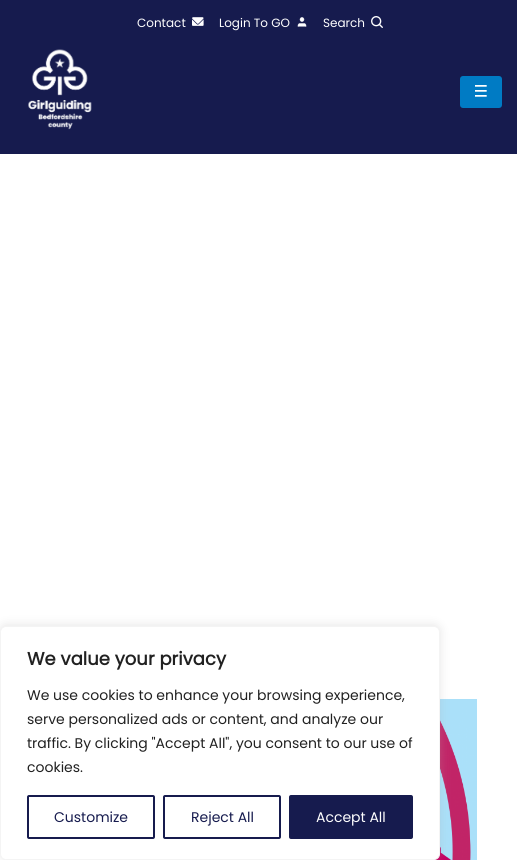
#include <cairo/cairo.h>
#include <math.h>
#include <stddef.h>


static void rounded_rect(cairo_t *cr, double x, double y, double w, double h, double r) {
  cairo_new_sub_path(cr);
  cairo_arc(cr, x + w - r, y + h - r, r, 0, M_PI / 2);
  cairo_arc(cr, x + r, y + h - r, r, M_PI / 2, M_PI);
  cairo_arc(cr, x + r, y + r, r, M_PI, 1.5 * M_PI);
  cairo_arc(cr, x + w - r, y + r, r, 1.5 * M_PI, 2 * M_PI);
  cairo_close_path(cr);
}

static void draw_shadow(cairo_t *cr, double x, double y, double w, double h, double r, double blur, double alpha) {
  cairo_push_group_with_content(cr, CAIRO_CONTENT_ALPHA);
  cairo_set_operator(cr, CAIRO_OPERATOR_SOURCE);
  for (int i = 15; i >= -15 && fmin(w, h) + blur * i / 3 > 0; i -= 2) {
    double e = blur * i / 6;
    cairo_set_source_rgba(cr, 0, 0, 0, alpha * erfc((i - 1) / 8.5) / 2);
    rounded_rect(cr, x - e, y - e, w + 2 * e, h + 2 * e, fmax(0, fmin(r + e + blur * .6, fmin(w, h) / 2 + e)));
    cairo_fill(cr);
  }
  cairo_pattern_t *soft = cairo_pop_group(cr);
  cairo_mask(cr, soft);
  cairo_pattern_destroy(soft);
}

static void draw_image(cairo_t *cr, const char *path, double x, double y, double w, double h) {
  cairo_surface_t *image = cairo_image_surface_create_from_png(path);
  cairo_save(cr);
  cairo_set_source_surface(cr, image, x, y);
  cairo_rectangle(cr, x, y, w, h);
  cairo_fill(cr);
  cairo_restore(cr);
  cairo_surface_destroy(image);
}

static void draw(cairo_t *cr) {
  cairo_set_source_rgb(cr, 1, 1, 1);
  cairo_paint(cr);
  cairo_set_source_rgb(cr, 22 / 255.0, 27 / 255.0, 78 / 255.0);
  cairo_rectangle(cr, 0, 0, 517, 154);
  cairo_fill(cr);
  draw_image(cr, "images/1.png", 192, 17, 12, 9);
  draw_image(cr, "images/2.png", 297, 17, 10, 10);
  draw_image(cr, "images/3.png", 371, 16, 12, 12);
  draw_image(cr, "images/4.png", 28, 49, 64, 81);
  cairo_set_source_rgb(cr, 0, 123 / 255.0, 196 / 255.0);
  rounded_rect(cr, 460, 76, 42, 32, 3);
  cairo_fill(cr);
  draw_image(cr, "images/5.png", 475, 85, 12, 12);
  draw_image(cr, "images/6.png", 434, 699, 43, 161);
  cairo_set_source_rgb(cr, 172 / 255.0, 171 / 255.0, 171 / 255.0);
  draw_shadow(cr, 0, 625, 440, 234, 6, 5, 0.3);
  cairo_set_source_rgb(cr, 1, 1, 1);
  rounded_rect(cr, 0.5, 626.5, 439, 233, 5.5);
  cairo_fill_preserve(cr);
  cairo_set_source_rgb(cr, 244 / 255.0, 244 / 255.0, 244 / 255.0);
  cairo_set_line_width(cr, 1);
  cairo_stroke(cr);
  rounded_rect(cr, 28, 796, 126, 42, 1);
  cairo_set_source_rgb(cr, 22 / 255.0, 27 / 255.0, 78 / 255.0);
  cairo_set_line_width(cr, 2);
  cairo_stroke(cr);
  rounded_rect(cr, 164, 796, 116, 42, 1);
  cairo_stroke(cr);
  rounded_rect(cr, 290, 796, 122, 42, 1);
  cairo_fill_preserve(cr);
  cairo_stroke(cr);
  cairo_select_font_face(cr, "Poppins", CAIRO_FONT_SLANT_NORMAL, CAIRO_FONT_WEIGHT_NORMAL);
  cairo_set_font_size(cr, 12);
  cairo_set_source_rgb(cr, 1, 1, 1);
  cairo_move_to(cr, 137, 27);
  cairo_show_text(cr, "Contact");
  cairo_move_to(cr, 219, 27);
  cairo_show_text(cr, "Login To GO");
  cairo_move_to(cr, 323, 27);
  cairo_show_text(cr, "Search");
  cairo_select_font_face(cr, "Poppins", CAIRO_FONT_SLANT_NORMAL, CAIRO_FONT_WEIGHT_BOLD);
  cairo_set_font_size(cr, 18);
  cairo_set_source_rgb(cr, 33 / 255.0, 33 / 255.0, 33 / 255.0);
  cairo_move_to(cr, 27, 665);
  cairo_show_text(cr, "We value your privacy");
  cairo_select_font_face(cr, "Poppins", CAIRO_FONT_SLANT_NORMAL, CAIRO_FONT_WEIGHT_NORMAL);
  cairo_set_font_size(cr, 14);
  cairo_move_to(cr, 27, 700);
  cairo_show_text(cr, "We use cookies to enhance your browsing experience,");
  cairo_move_to(cr, 27, 724);
  cairo_show_text(cr, "serve personalized ads or content, and analyze our");
  cairo_move_to(cr, 27, 748);
  cairo_show_text(cr, "traffic. By clicking \"Accept All\", you consent to our use of");
  cairo_move_to(cr, 27, 772);
  cairo_show_text(cr, "cookies.");
  cairo_set_source_rgb(cr, 22 / 255.0, 27 / 255.0, 78 / 255.0);
  cairo_move_to(cr, 54, 822);
  cairo_show_text(cr, "Customize");
  cairo_move_to(cr, 191, 822);
  cairo_show_text(cr, "Reject All");
  cairo_set_source_rgb(cr, 1, 1, 1);
  cairo_move_to(cr, 316, 822);
  cairo_show_text(cr, "Accept All");
}

int main(void) {
  cairo_surface_t *surface = cairo_image_surface_create(CAIRO_FORMAT_RGB24, 517, 860);
  cairo_t *cr = cairo_create(surface);
  cairo_font_options_t *options = cairo_font_options_create();
  cairo_font_options_set_hint_metrics(options, CAIRO_HINT_METRICS_OFF);
  cairo_font_options_set_hint_style(options, CAIRO_HINT_STYLE_NONE);
  cairo_set_font_options(cr, options);
  cairo_set_miter_limit(cr, 4);
  draw(cr);
  cairo_surface_write_to_png(surface, "out.png");
  cairo_font_options_destroy(options);
  cairo_destroy(cr);
  cairo_surface_destroy(surface);
  return 0;
}
